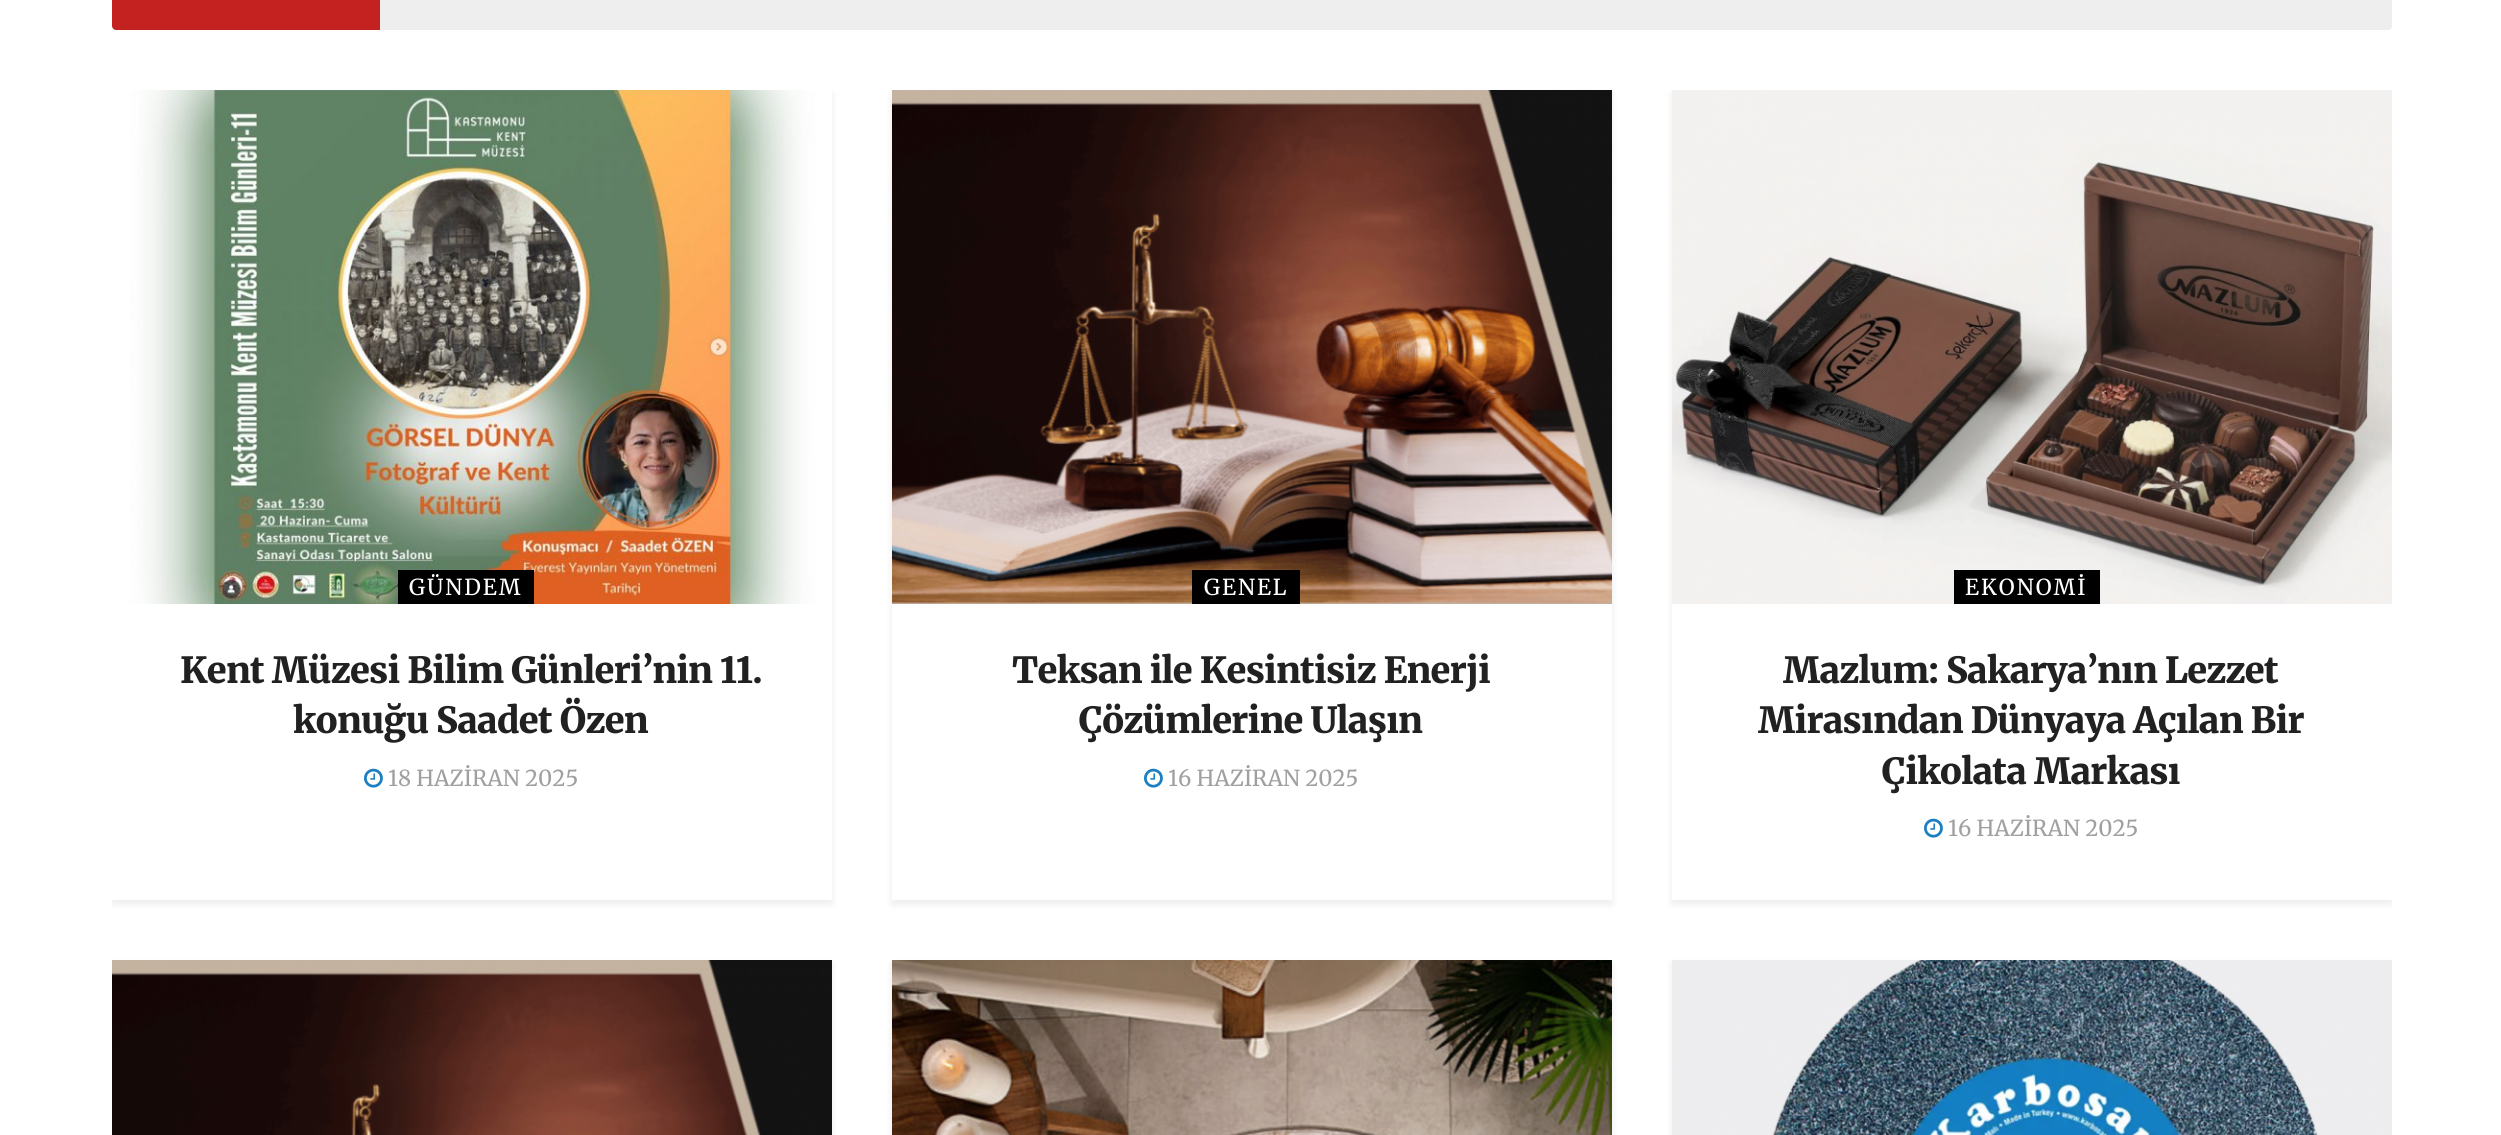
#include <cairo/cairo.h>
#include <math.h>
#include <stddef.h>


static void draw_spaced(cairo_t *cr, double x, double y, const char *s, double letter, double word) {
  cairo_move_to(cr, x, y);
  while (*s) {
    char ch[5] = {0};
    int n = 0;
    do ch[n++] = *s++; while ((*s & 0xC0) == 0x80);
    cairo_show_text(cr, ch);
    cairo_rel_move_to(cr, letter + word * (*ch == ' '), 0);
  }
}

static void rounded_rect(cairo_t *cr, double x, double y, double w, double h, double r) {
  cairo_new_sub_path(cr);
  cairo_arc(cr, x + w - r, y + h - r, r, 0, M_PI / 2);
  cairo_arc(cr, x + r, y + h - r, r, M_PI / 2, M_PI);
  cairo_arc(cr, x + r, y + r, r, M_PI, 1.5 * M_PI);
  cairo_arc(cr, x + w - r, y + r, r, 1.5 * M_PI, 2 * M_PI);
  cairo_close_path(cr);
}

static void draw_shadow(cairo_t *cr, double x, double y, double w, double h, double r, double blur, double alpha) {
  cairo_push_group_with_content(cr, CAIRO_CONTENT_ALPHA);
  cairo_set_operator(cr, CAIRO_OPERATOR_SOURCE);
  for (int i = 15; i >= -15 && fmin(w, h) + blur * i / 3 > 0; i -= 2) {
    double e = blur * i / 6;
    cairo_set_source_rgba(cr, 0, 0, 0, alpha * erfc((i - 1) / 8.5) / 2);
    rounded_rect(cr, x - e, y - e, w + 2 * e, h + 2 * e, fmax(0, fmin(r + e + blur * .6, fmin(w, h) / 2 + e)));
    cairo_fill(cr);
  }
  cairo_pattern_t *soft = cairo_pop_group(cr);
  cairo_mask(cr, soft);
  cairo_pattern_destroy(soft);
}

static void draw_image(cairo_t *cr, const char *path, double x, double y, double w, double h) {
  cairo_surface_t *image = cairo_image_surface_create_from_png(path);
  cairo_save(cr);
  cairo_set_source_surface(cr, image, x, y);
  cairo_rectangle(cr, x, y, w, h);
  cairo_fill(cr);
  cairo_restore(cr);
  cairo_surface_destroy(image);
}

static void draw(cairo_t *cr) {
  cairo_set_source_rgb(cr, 1, 1, 1);
  cairo_paint(cr);
  cairo_set_source_rgb(cr, 238 / 255.0, 238 / 255.0, 238 / 255.0);
  rounded_rect(cr, 112, -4, 2280, 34, 4);
  cairo_fill(cr);
  cairo_set_source_rgb(cr, 196 / 255.0, 33 / 255.0, 33 / 255.0);
  cairo_new_path(cr);
  cairo_move_to(cr, 116, -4);
  cairo_line_to(cr, 380, -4);
  cairo_line_to(cr, 380, 30);
  cairo_line_to(cr, 116, 30);
  cairo_curve_to(cr, 114, 30, 112, 28, 112, 26);
  cairo_line_to(cr, 112, 0);
  cairo_curve_to(cr, 112, -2, 114, -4, 116, -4);
  cairo_close_path(cr);
  cairo_fill(cr);
  cairo_save(cr);
  cairo_rectangle(cr, 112, 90, 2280, 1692);
  cairo_clip(cr);
  cairo_set_fill_rule(cr, CAIRO_FILL_RULE_EVEN_ODD);
  cairo_new_path(cr);
  cairo_move_to(cr, 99, 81);
  cairo_line_to(cr, 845, 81);
  cairo_line_to(cr, 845, 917);
  cairo_line_to(cr, 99, 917);
  cairo_close_path(cr);
  cairo_move_to(cr, 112, 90);
  cairo_line_to(cr, 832, 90);
  cairo_line_to(cr, 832, 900);
  cairo_line_to(cr, 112, 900);
  cairo_close_path(cr);
  cairo_clip(cr);
  cairo_set_source_rgb(cr, 0, 0, 0);
  draw_shadow(cr, 112, 94, 720, 810, 0, 4, 0.08);
  cairo_restore(cr);
  draw_image(cr, "images/1.png", 112, 90, 720, 514);
  cairo_set_source_rgb(cr, 0, 0, 0);
  cairo_rectangle(cr, 398, 570, 136, 34);
  cairo_fill(cr);
  draw_image(cr, "images/2.png", 364, 768, 19, 20);
  cairo_save(cr);
  cairo_set_fill_rule(cr, CAIRO_FILL_RULE_EVEN_ODD);
  cairo_new_path(cr);
  cairo_move_to(cr, 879, 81);
  cairo_line_to(cr, 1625, 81);
  cairo_line_to(cr, 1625, 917);
  cairo_line_to(cr, 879, 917);
  cairo_close_path(cr);
  cairo_move_to(cr, 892, 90);
  cairo_line_to(cr, 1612, 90);
  cairo_line_to(cr, 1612, 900);
  cairo_line_to(cr, 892, 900);
  cairo_close_path(cr);
  cairo_clip(cr);
  cairo_set_source_rgb(cr, 0, 0, 0);
  draw_shadow(cr, 892, 94, 720, 810, 0, 4, 0.08);
  cairo_restore(cr);
  draw_image(cr, "images/3.png", 892, 90, 720, 514);
  cairo_rectangle(cr, 1192, 570, 108, 34);
  cairo_fill(cr);
  draw_image(cr, "images/2.png", 1144, 768, 19, 20);
  cairo_save(cr);
  cairo_rectangle(cr, 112, 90, 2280, 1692);
  cairo_clip(cr);
  cairo_set_fill_rule(cr, CAIRO_FILL_RULE_EVEN_ODD);
  cairo_new_path(cr);
  cairo_move_to(cr, 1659, 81);
  cairo_line_to(cr, 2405, 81);
  cairo_line_to(cr, 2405, 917);
  cairo_line_to(cr, 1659, 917);
  cairo_close_path(cr);
  cairo_move_to(cr, 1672, 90);
  cairo_line_to(cr, 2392, 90);
  cairo_line_to(cr, 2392, 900);
  cairo_line_to(cr, 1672, 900);
  cairo_close_path(cr);
  cairo_clip(cr);
  cairo_set_source_rgb(cr, 0, 0, 0);
  draw_shadow(cr, 1672, 94, 720, 810, 0, 4, 0.08);
  cairo_restore(cr);
  draw_image(cr, "images/4.png", 1672, 90, 720, 514);
  cairo_rectangle(cr, 1954, 570, 146, 34);
  cairo_fill(cr);
  draw_image(cr, "images/2.png", 1924, 818, 19, 20);
  cairo_save(cr);
  cairo_rectangle(cr, 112, 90, 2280, 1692);
  cairo_clip(cr);
  cairo_set_source_rgb(cr, 0, 0, 0);
  draw_shadow(cr, 112, 964, 720, 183, 0, 4, 0.08);
  cairo_restore(cr);
  draw_image(cr, "images/5.png", 112, 960, 720, 175);
  cairo_set_source_rgb(cr, 0, 0, 0);
  draw_shadow(cr, 892, 964, 720, 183, 0, 4, 0.08);
  draw_image(cr, "images/6.png", 892, 960, 720, 175);
  cairo_save(cr);
  cairo_rectangle(cr, 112, 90, 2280, 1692);
  cairo_clip(cr);
  draw_shadow(cr, 1672, 964, 720, 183, 0, 4, 0.08);
  cairo_restore(cr);
  draw_image(cr, "images/7.png", 1672, 960, 720, 175);
  cairo_select_font_face(cr, "Merriweather", CAIRO_FONT_SLANT_NORMAL, CAIRO_FONT_WEIGHT_NORMAL);
  cairo_set_font_size(cr, 22);
  cairo_set_source_rgb(cr, 1, 1, 1);
  draw_spaced(cr, 409, 595, "GÜNDEM", 2, 0);
  cairo_select_font_face(cr, "Merriweather Black", CAIRO_FONT_SLANT_NORMAL, CAIRO_FONT_WEIGHT_NORMAL);
  cairo_set_font_size(cr, 36);
  cairo_set_source_rgb(cr, 33 / 255.0, 33 / 255.0, 33 / 255.0);
  draw_spaced(cr, 180, 683, "Kent Müzesi Bilim Günleri’nin 11.", -0.75, 0);
  draw_spaced(cr, 293, 733, "konuğu Saadet Özen", -0.75, 0);
  cairo_select_font_face(cr, "Merriweather", CAIRO_FONT_SLANT_NORMAL, CAIRO_FONT_WEIGHT_NORMAL);
  cairo_set_font_size(cr, 22);
  cairo_set_source_rgb(cr, 160 / 255.0, 160 / 255.0, 160 / 255.0);
  cairo_move_to(cr, 388, 786);
  cairo_show_text(cr, "18 HAZİRAN 2025");
  cairo_set_source_rgb(cr, 1, 1, 1);
  draw_spaced(cr, 1204, 595, "GENEL", 2, 0);
  cairo_select_font_face(cr, "Merriweather Black", CAIRO_FONT_SLANT_NORMAL, CAIRO_FONT_WEIGHT_NORMAL);
  cairo_set_font_size(cr, 36);
  cairo_set_source_rgb(cr, 33 / 255.0, 33 / 255.0, 33 / 255.0);
  draw_spaced(cr, 1012, 683, "Teksan ile Kesintisiz Enerji", -0.75, 0);
  draw_spaced(cr, 1079, 733, "Çözümlerine Ulaşın", -0.75, 0);
  cairo_select_font_face(cr, "Merriweather", CAIRO_FONT_SLANT_NORMAL, CAIRO_FONT_WEIGHT_NORMAL);
  cairo_set_font_size(cr, 22);
  cairo_set_source_rgb(cr, 160 / 255.0, 160 / 255.0, 160 / 255.0);
  cairo_move_to(cr, 1168, 786);
  cairo_show_text(cr, "16 HAZİRAN 2025");
  cairo_set_source_rgb(cr, 1, 1, 1);
  draw_spaced(cr, 1965, 595, "EKONOMİ", 2, 0);
  cairo_select_font_face(cr, "Merriweather Black", CAIRO_FONT_SLANT_NORMAL, CAIRO_FONT_WEIGHT_NORMAL);
  cairo_set_font_size(cr, 36);
  cairo_set_source_rgb(cr, 33 / 255.0, 33 / 255.0, 33 / 255.0);
  draw_spaced(cr, 1783, 683, "Mazlum: Sakarya’nın Lezzet", -0.75, 0);
  draw_spaced(cr, 1758, 733, "Mirasından Dünyaya Açılan Bir", -0.75, 0);
  draw_spaced(cr, 1882, 784, "Çikolata Markası", -0.75, 0);
  cairo_select_font_face(cr, "Merriweather", CAIRO_FONT_SLANT_NORMAL, CAIRO_FONT_WEIGHT_NORMAL);
  cairo_set_font_size(cr, 22);
  cairo_set_source_rgb(cr, 160 / 255.0, 160 / 255.0, 160 / 255.0);
  cairo_move_to(cr, 1948, 836);
  cairo_show_text(cr, "16 HAZİRAN 2025");
}

int main(void) {
  cairo_surface_t *surface = cairo_image_surface_create(CAIRO_FORMAT_RGB24, 2501, 1135);
  cairo_t *cr = cairo_create(surface);
  cairo_font_options_t *options = cairo_font_options_create();
  cairo_font_options_set_hint_metrics(options, CAIRO_HINT_METRICS_OFF);
  cairo_font_options_set_hint_style(options, CAIRO_HINT_STYLE_NONE);
  cairo_set_font_options(cr, options);
  cairo_set_miter_limit(cr, 4);
  draw(cr);
  cairo_surface_write_to_png(surface, "out.png");
  cairo_font_options_destroy(options);
  cairo_destroy(cr);
  cairo_surface_destroy(surface);
  return 0;
}
